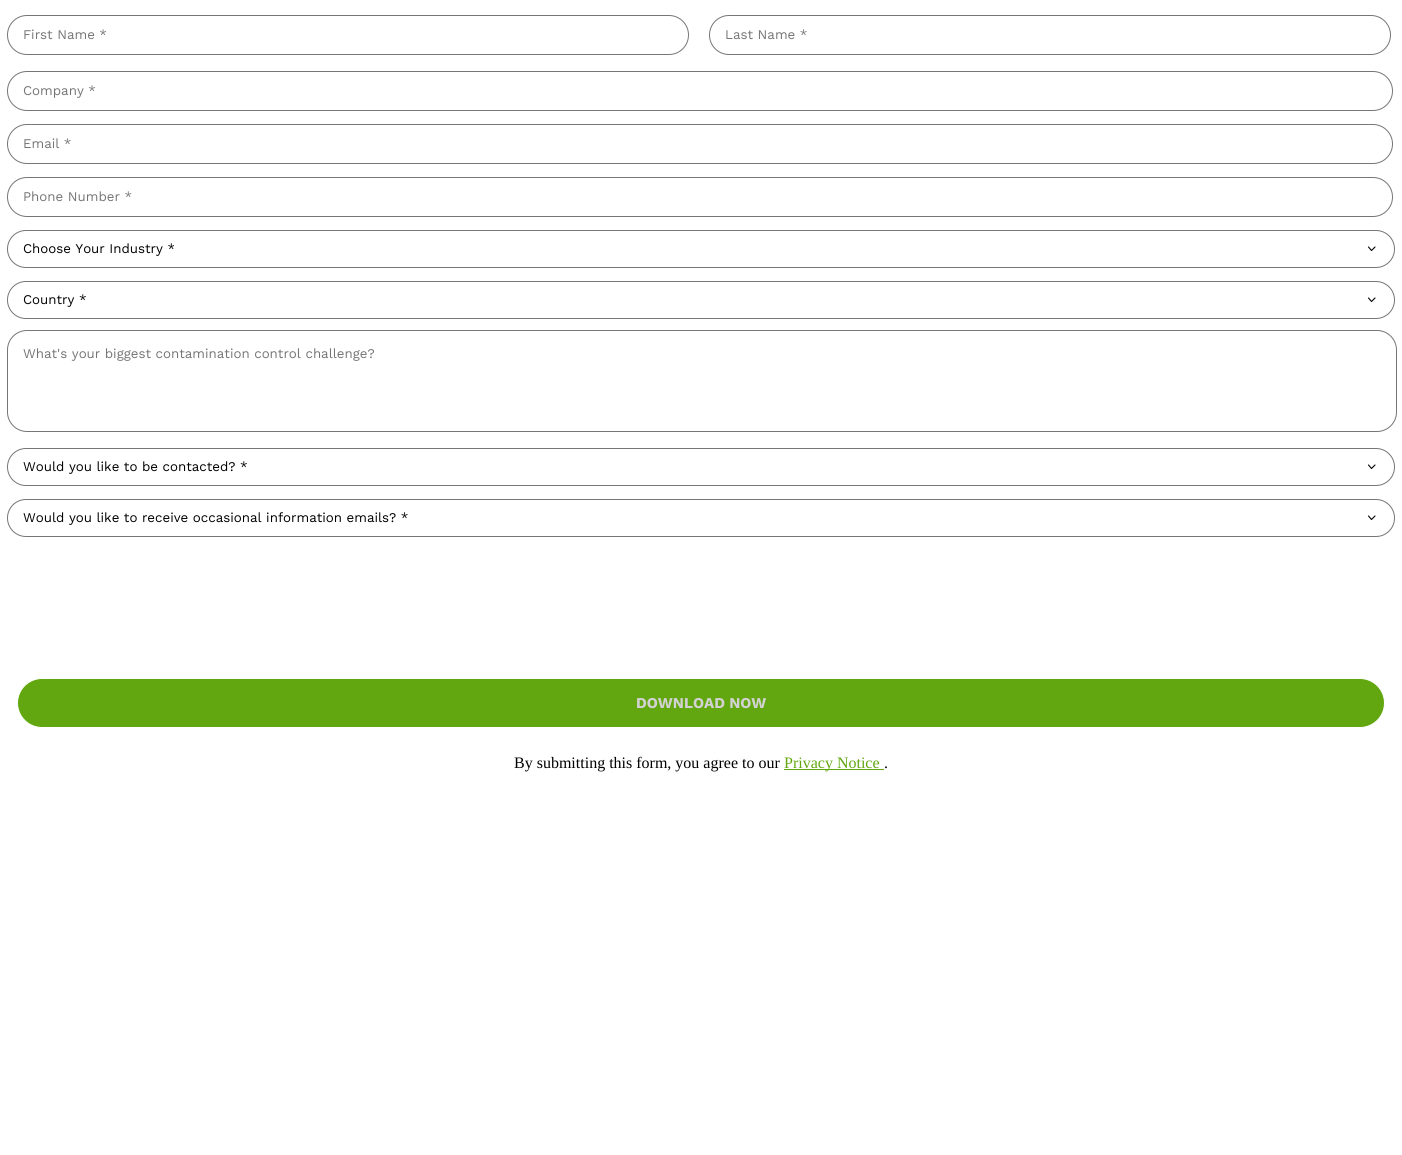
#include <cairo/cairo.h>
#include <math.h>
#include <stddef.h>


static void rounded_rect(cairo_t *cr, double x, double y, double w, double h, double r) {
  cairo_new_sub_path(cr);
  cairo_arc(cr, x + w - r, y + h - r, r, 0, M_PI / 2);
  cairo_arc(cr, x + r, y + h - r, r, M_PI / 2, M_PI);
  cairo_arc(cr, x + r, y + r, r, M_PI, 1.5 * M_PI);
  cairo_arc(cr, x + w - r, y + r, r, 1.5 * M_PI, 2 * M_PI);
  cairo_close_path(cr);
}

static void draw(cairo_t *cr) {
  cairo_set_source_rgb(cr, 1, 1, 1);
  cairo_paint(cr);
  rounded_rect(cr, 7.5, 15.5, 681, 39, 19.5);
  cairo_set_source_rgb(cr, 118 / 255.0, 118 / 255.0, 118 / 255.0);
  cairo_set_line_width(cr, 1);
  cairo_stroke(cr);
  rounded_rect(cr, 709.5, 15.5, 681, 39, 19.5);
  cairo_stroke(cr);
  rounded_rect(cr, 7.5, 71.5, 1385, 39, 19.5);
  cairo_stroke(cr);
  rounded_rect(cr, 7.5, 124.5, 1385, 39, 19.5);
  cairo_stroke(cr);
  rounded_rect(cr, 7.5, 177.5, 1385, 39, 19.5);
  cairo_stroke(cr);
  cairo_new_path(cr);
  cairo_move_to(cr, 1368.5, 247);
  cairo_line_to(cr, 1371.5, 250.5);
  cairo_line_to(cr, 1375, 247);
  cairo_set_source_rgb(cr, 0, 0, 0);
  cairo_set_line_width(cr, 1.1);
  cairo_set_line_cap(cr, CAIRO_LINE_CAP_ROUND);
  cairo_set_line_join(cr, CAIRO_LINE_JOIN_ROUND);
  cairo_stroke(cr);
  rounded_rect(cr, 7.5, 230.5, 1387, 37, 18.5);
  cairo_set_source_rgb(cr, 118 / 255.0, 118 / 255.0, 118 / 255.0);
  cairo_set_line_width(cr, 1);
  cairo_set_line_cap(cr, CAIRO_LINE_CAP_BUTT);
  cairo_set_line_join(cr, CAIRO_LINE_JOIN_MITER);
  cairo_stroke(cr);
  cairo_new_path(cr);
  cairo_move_to(cr, 1368.5, 298);
  cairo_line_to(cr, 1371.5, 301.5);
  cairo_line_to(cr, 1375, 298);
  cairo_set_source_rgb(cr, 0, 0, 0);
  cairo_set_line_width(cr, 1.1);
  cairo_set_line_cap(cr, CAIRO_LINE_CAP_ROUND);
  cairo_set_line_join(cr, CAIRO_LINE_JOIN_ROUND);
  cairo_stroke(cr);
  rounded_rect(cr, 7.5, 281.5, 1387, 37, 18.5);
  cairo_set_source_rgb(cr, 118 / 255.0, 118 / 255.0, 118 / 255.0);
  cairo_set_line_width(cr, 1);
  cairo_set_line_cap(cr, CAIRO_LINE_CAP_BUTT);
  cairo_set_line_join(cr, CAIRO_LINE_JOIN_MITER);
  cairo_stroke(cr);
  rounded_rect(cr, 7.5, 330.5, 1389, 101, 19.5);
  cairo_stroke(cr);
  cairo_new_path(cr);
  cairo_move_to(cr, 1368.5, 465);
  cairo_line_to(cr, 1371.5, 468.5);
  cairo_line_to(cr, 1375, 465);
  cairo_set_source_rgb(cr, 0, 0, 0);
  cairo_set_line_width(cr, 1.1);
  cairo_set_line_cap(cr, CAIRO_LINE_CAP_ROUND);
  cairo_set_line_join(cr, CAIRO_LINE_JOIN_ROUND);
  cairo_stroke(cr);
  rounded_rect(cr, 7.5, 448.5, 1387, 37, 18.5);
  cairo_set_source_rgb(cr, 118 / 255.0, 118 / 255.0, 118 / 255.0);
  cairo_set_line_width(cr, 1);
  cairo_set_line_cap(cr, CAIRO_LINE_CAP_BUTT);
  cairo_set_line_join(cr, CAIRO_LINE_JOIN_MITER);
  cairo_stroke(cr);
  cairo_new_path(cr);
  cairo_move_to(cr, 1368.5, 516);
  cairo_line_to(cr, 1371.5, 519.5);
  cairo_line_to(cr, 1375, 516);
  cairo_set_source_rgb(cr, 0, 0, 0);
  cairo_set_line_width(cr, 1.1);
  cairo_set_line_cap(cr, CAIRO_LINE_CAP_ROUND);
  cairo_set_line_join(cr, CAIRO_LINE_JOIN_ROUND);
  cairo_stroke(cr);
  rounded_rect(cr, 7.5, 499.5, 1387, 37, 18.5);
  cairo_set_source_rgb(cr, 118 / 255.0, 118 / 255.0, 118 / 255.0);
  cairo_set_line_width(cr, 1);
  cairo_set_line_cap(cr, CAIRO_LINE_CAP_BUTT);
  cairo_set_line_join(cr, CAIRO_LINE_JOIN_MITER);
  cairo_stroke(cr);
  cairo_set_source_rgb(cr, 98 / 255.0, 167 / 255.0, 15 / 255.0);
  rounded_rect(cr, 17.5, 678.5, 1367, 49, 24.5);
  cairo_fill_preserve(cr);
  cairo_set_source_rgb(cr, 1, 1, 1);
  cairo_stroke(cr);
  cairo_set_source_rgb(cr, 98 / 255.0, 167 / 255.0, 15 / 255.0);
  cairo_rectangle(cr, 784, 769, 100, 1);
  cairo_fill(cr);
  cairo_select_font_face(cr, "Work Sans", CAIRO_FONT_SLANT_NORMAL, CAIRO_FONT_WEIGHT_NORMAL);
  cairo_set_font_size(cr, 13.3);
  cairo_set_source_rgb(cr, 117 / 255.0, 117 / 255.0, 117 / 255.0);
  cairo_move_to(cr, 23, 39);
  cairo_show_text(cr, "First Name *");
  cairo_move_to(cr, 725, 39);
  cairo_show_text(cr, "Last Name *");
  cairo_move_to(cr, 23, 95);
  cairo_show_text(cr, "Company *");
  cairo_move_to(cr, 23, 148);
  cairo_show_text(cr, "Email *");
  cairo_move_to(cr, 23, 201);
  cairo_show_text(cr, "Phone Number *");
  cairo_set_source_rgb(cr, 0, 0, 0);
  cairo_move_to(cr, 23, 253);
  cairo_show_text(cr, "Choose Your Industry *");
  cairo_move_to(cr, 23, 304);
  cairo_show_text(cr, "Country *");
  cairo_set_source_rgb(cr, 117 / 255.0, 117 / 255.0, 117 / 255.0);
  cairo_move_to(cr, 23, 358);
  cairo_show_text(cr, "What's your biggest contamination control challenge?");
  cairo_set_source_rgb(cr, 0, 0, 0);
  cairo_move_to(cr, 23, 471);
  cairo_show_text(cr, "Would you like to be contacted? *");
  cairo_move_to(cr, 23, 522);
  cairo_show_text(cr, "Would you like to receive occasional information emails? *");
  cairo_select_font_face(cr, "Work Sans", CAIRO_FONT_SLANT_NORMAL, CAIRO_FONT_WEIGHT_BOLD);
  cairo_set_font_size(cr, 15);
  cairo_set_source_rgb(cr, 210 / 255.0, 210 / 255.0, 210 / 255.0);
  cairo_move_to(cr, 636, 708);
  cairo_show_text(cr, "DOWNLOAD NOW");
  cairo_select_font_face(cr, "Liberation Serif", CAIRO_FONT_SLANT_NORMAL, CAIRO_FONT_WEIGHT_NORMAL);
  cairo_set_font_size(cr, 16);
  cairo_set_source_rgb(cr, 0, 0, 0);
  cairo_move_to(cr, 514, 768);
  cairo_show_text(cr, "By submitting this form, you agree to our");
  cairo_set_source_rgb(cr, 98 / 255.0, 167 / 255.0, 15 / 255.0);
  cairo_move_to(cr, 784, 768);
  cairo_show_text(cr, "Privacy Notice");
  cairo_set_source_rgb(cr, 0, 0, 0);
  cairo_move_to(cr, 884, 768);
  cairo_show_text(cr, ".");
}

int main(void) {
  cairo_surface_t *surface = cairo_image_surface_create(CAIRO_FORMAT_RGB24, 1402, 1155);
  cairo_t *cr = cairo_create(surface);
  cairo_font_options_t *options = cairo_font_options_create();
  cairo_font_options_set_hint_metrics(options, CAIRO_HINT_METRICS_OFF);
  cairo_font_options_set_hint_style(options, CAIRO_HINT_STYLE_NONE);
  cairo_set_font_options(cr, options);
  cairo_set_miter_limit(cr, 4);
  draw(cr);
  cairo_surface_write_to_png(surface, "out.png");
  cairo_font_options_destroy(options);
  cairo_destroy(cr);
  cairo_surface_destroy(surface);
  return 0;
}
